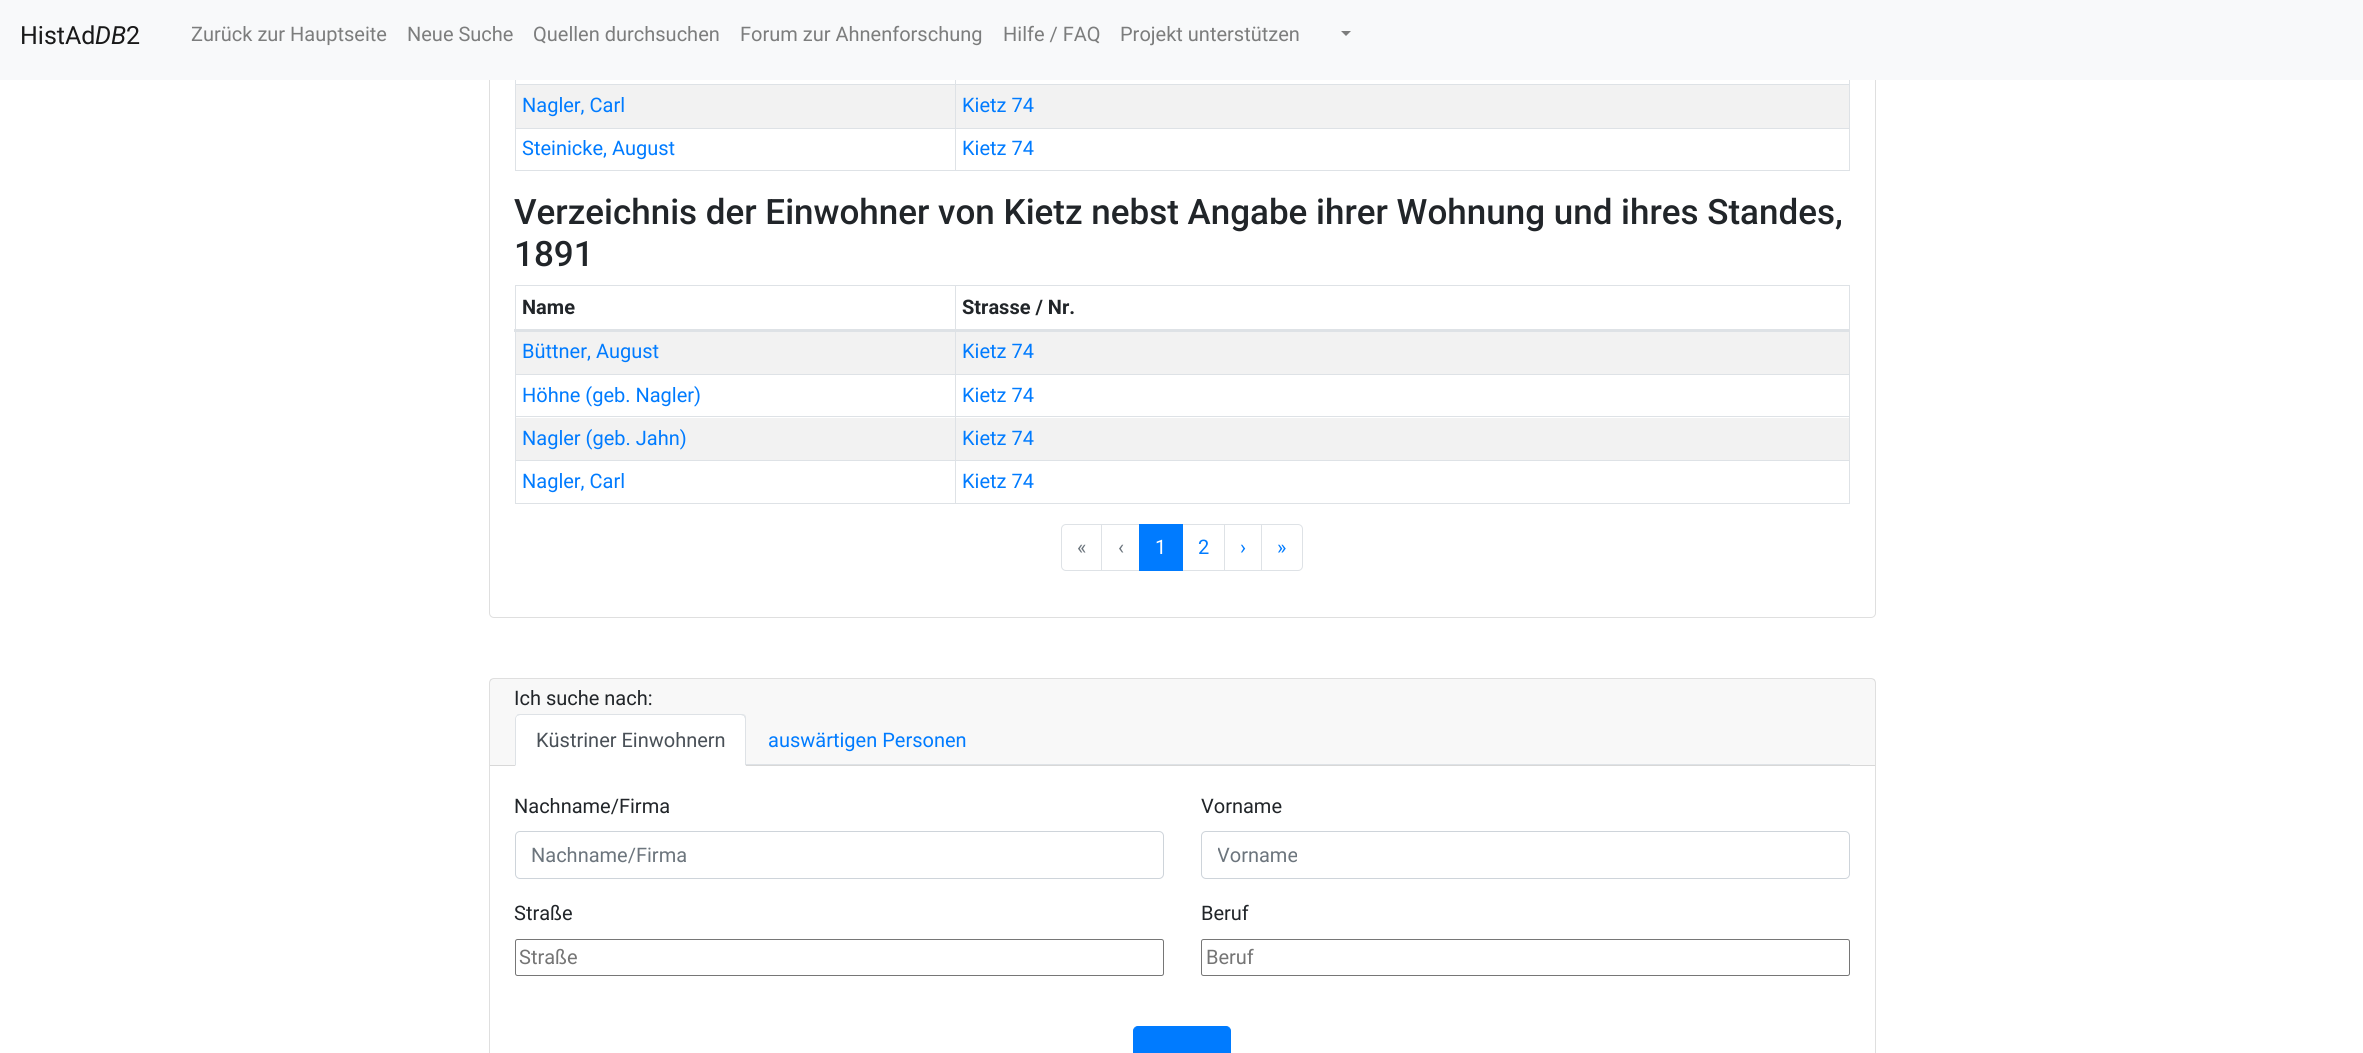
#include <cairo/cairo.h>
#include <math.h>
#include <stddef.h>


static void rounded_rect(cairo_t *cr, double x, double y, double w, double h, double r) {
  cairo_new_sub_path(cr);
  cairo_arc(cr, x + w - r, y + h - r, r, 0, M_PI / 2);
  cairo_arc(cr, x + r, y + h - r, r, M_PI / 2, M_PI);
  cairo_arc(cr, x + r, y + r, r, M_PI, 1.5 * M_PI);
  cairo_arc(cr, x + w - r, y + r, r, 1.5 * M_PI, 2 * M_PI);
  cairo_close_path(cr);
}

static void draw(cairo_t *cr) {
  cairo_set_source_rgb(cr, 1, 1, 1);
  cairo_paint(cr);
  rounded_rect(cr, 489.5, -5.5, 1386, 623, 4.5);
  cairo_set_source_rgb(cr, 223 / 255.0, 223 / 255.0, 223 / 255.0);
  cairo_set_line_width(cr, 1);
  cairo_stroke(cr);
  cairo_set_source_rgb(cr, 248 / 255.0, 249 / 255.0, 250 / 255.0);
  cairo_rectangle(cr, 0, 0, 2363, 80);
  cairo_fill(cr);
  cairo_set_source_rgb(cr, 124 / 255.0, 125 / 255.0, 125 / 255.0);
  cairo_new_path(cr);
  cairo_move_to(cr, 1341, 31);
  cairo_line_to(cr, 1351, 31);
  cairo_line_to(cr, 1346, 36);
  cairo_close_path(cr);
  cairo_fill(cr);
  cairo_set_source_rgb(cr, 222 / 255.0, 226 / 255.0, 230 / 255.0);
  cairo_rectangle(cr, 1849, 80, 1, 91);
  cairo_fill(cr);
  cairo_rectangle(cr, 515, 170, 1335, 1);
  cairo_fill(cr);
  cairo_rectangle(cr, 515, 80, 1, 91);
  cairo_fill(cr);
  cairo_rectangle(cr, 955, 84, 895, 1);
  cairo_fill(cr);
  cairo_set_source_rgb(cr, 242 / 255.0, 242 / 255.0, 242 / 255.0);
  cairo_rectangle(cr, 516, 85, 1333, 43);
  cairo_fill(cr);
  cairo_set_source_rgb(cr, 222 / 255.0, 226 / 255.0, 230 / 255.0);
  cairo_rectangle(cr, 955, 128, 895, 1);
  cairo_fill(cr);
  cairo_rectangle(cr, 955, 128, 1, 43);
  cairo_fill(cr);
  cairo_rectangle(cr, 515, 128, 441, 1);
  cairo_fill(cr);
  cairo_rectangle(cr, 955, 84, 1, 45);
  cairo_fill(cr);
  cairo_rectangle(cr, 515, 84, 441, 1);
  cairo_fill(cr);
  cairo_rectangle(cr, 955, 80, 1, 5);
  cairo_fill(cr);
  cairo_rectangle(cr, 515, 285, 1335, 1);
  cairo_fill(cr);
  cairo_rectangle(cr, 1849, 285, 1, 219);
  cairo_fill(cr);
  cairo_rectangle(cr, 515, 503, 1335, 1);
  cairo_fill(cr);
  cairo_rectangle(cr, 515, 285, 1, 219);
  cairo_fill(cr);
  cairo_set_source_rgb(cr, 242 / 255.0, 242 / 255.0, 242 / 255.0);
  cairo_rectangle(cr, 516, 332, 1333, 42);
  cairo_fill(cr);
  cairo_set_source_rgb(cr, 222 / 255.0, 226 / 255.0, 230 / 255.0);
  cairo_rectangle(cr, 955, 374, 895, 1);
  cairo_fill(cr);
  cairo_rectangle(cr, 955, 416, 895, 1);
  cairo_fill(cr);
  cairo_set_source_rgb(cr, 242 / 255.0, 242 / 255.0, 242 / 255.0);
  cairo_rectangle(cr, 516, 418, 1333, 42);
  cairo_fill(cr);
  cairo_set_source_rgb(cr, 222 / 255.0, 226 / 255.0, 230 / 255.0);
  cairo_rectangle(cr, 955, 460, 895, 1);
  cairo_fill(cr);
  cairo_rectangle(cr, 955, 460, 1, 44);
  cairo_fill(cr);
  cairo_rectangle(cr, 515, 460, 441, 1);
  cairo_fill(cr);
  cairo_rectangle(cr, 955, 416, 1, 45);
  cairo_fill(cr);
  cairo_rectangle(cr, 515, 416, 441, 1);
  cairo_fill(cr);
  cairo_rectangle(cr, 955, 374, 1, 44);
  cairo_fill(cr);
  cairo_rectangle(cr, 515, 374, 441, 1);
  cairo_fill(cr);
  cairo_rectangle(cr, 955, 285, 1, 90);
  cairo_fill(cr);
  cairo_rectangle(cr, 514, 329, 1336, 3);
  cairo_fill(cr);
  cairo_new_path(cr);
  cairo_move_to(cr, 1066, 524.5);
  cairo_line_to(cr, 1102.5, 524.5);
  cairo_line_to(cr, 1102.5, 570.5);
  cairo_line_to(cr, 1066, 570.5);
  cairo_curve_to(cr, 1063.5, 570.5, 1061.5, 568.5, 1061.5, 566);
  cairo_line_to(cr, 1061.5, 529);
  cairo_curve_to(cr, 1061.5, 526.5, 1063.5, 524.5, 1066, 524.5);
  cairo_close_path(cr);
  cairo_stroke(cr);
  cairo_set_source_rgb(cr, 1, 1, 1);
  cairo_rectangle(cr, 1102, 525, 1, 45);
  cairo_fill(cr);
  cairo_rectangle(cr, 1101.5, 524.5, 38, 46);
  cairo_set_source_rgb(cr, 222 / 255.0, 226 / 255.0, 230 / 255.0);
  cairo_stroke(cr);
  cairo_rectangle(cr, 1181.5, 524.5, 43, 46);
  cairo_stroke(cr);
  cairo_set_source_rgb(cr, 0, 123 / 255.0, 1);
  cairo_rectangle(cr, 1139, 524, 44, 47);
  cairo_fill(cr);
  cairo_rectangle(cr, 1224.5, 524.5, 38, 46);
  cairo_set_source_rgb(cr, 222 / 255.0, 226 / 255.0, 230 / 255.0);
  cairo_stroke(cr);
  cairo_set_source_rgb(cr, 1, 1, 1);
  cairo_new_path(cr);
  cairo_move_to(cr, 1261.5, 524.5);
  cairo_line_to(cr, 1298, 524.5);
  cairo_curve_to(cr, 1300.5, 524.5, 1302.5, 526.5, 1302.5, 529);
  cairo_line_to(cr, 1302.5, 566);
  cairo_curve_to(cr, 1302.5, 568.5, 1300.5, 570.5, 1298, 570.5);
  cairo_line_to(cr, 1261.5, 570.5);
  cairo_close_path(cr);
  cairo_fill_preserve(cr);
  cairo_set_source_rgb(cr, 222 / 255.0, 226 / 255.0, 230 / 255.0);
  cairo_stroke(cr);
  rounded_rect(cr, 489.5, 678.5, 1386, 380, 4.5);
  cairo_set_source_rgb(cr, 223 / 255.0, 223 / 255.0, 223 / 255.0);
  cairo_stroke(cr);
  cairo_set_source_rgba(cr, 0, 0, 0, 0.03);
  cairo_rectangle(cr, 490, 679, 1385, 86);
  cairo_fill(cr);
  cairo_set_source_rgb(cr, 216 / 255.0, 216 / 255.0, 216 / 255.0);
  cairo_rectangle(cr, 490, 765, 1385, 1);
  cairo_fill(cr);
  cairo_set_source_rgb(cr, 222 / 255.0, 226 / 255.0, 230 / 255.0);
  cairo_rectangle(cr, 746, 764, 1104, 1);
  cairo_fill(cr);
  cairo_set_source_rgb(cr, 1, 1, 1);
  cairo_new_path(cr);
  cairo_move_to(cr, 520, 714);
  cairo_line_to(cr, 741, 714);
  cairo_curve_to(cr, 744, 714, 746, 716, 746, 719);
  cairo_line_to(cr, 746, 766);
  cairo_line_to(cr, 515, 766);
  cairo_line_to(cr, 515, 719);
  cairo_curve_to(cr, 515, 716, 517, 714, 520, 714);
  cairo_close_path(cr);
  cairo_fill(cr);
  cairo_set_source_rgb(cr, 222 / 255.0, 226 / 255.0, 230 / 255.0);
  cairo_new_path(cr);
  cairo_move_to(cr, 520, 714);
  cairo_curve_to(cr, 519, 714, 517, 714, 517, 715);
  cairo_line_to(cr, 517, 716);
  cairo_line_to(cr, 520, 715);
  cairo_line_to(cr, 741, 715);
  cairo_line_to(cr, 744, 716);
  cairo_line_to(cr, 745, 715);
  cairo_curve_to(cr, 744, 714, 742, 714, 741, 714);
  cairo_close_path(cr);
  cairo_fill(cr);
  cairo_new_path(cr);
  cairo_move_to(cr, 746, 766);
  cairo_line_to(cr, 746, 719);
  cairo_curve_to(cr, 746, 718, 746, 716, 745, 715);
  cairo_line_to(cr, 744, 716);
  cairo_curve_to(cr, 744, 717, 745, 718, 745, 719);
  cairo_line_to(cr, 745, 765);
  cairo_close_path(cr);
  cairo_fill(cr);
  cairo_set_source_rgb(cr, 1, 1, 1);
  cairo_new_path(cr);
  cairo_move_to(cr, 746, 766);
  cairo_line_to(cr, 745, 765);
  cairo_line_to(cr, 516, 765);
  cairo_line_to(cr, 515, 766);
  cairo_close_path(cr);
  cairo_fill(cr);
  cairo_set_source_rgb(cr, 222 / 255.0, 226 / 255.0, 230 / 255.0);
  cairo_new_path(cr);
  cairo_move_to(cr, 515, 719);
  cairo_line_to(cr, 515, 766);
  cairo_line_to(cr, 516, 765);
  cairo_line_to(cr, 516, 718);
  cairo_line_to(cr, 517, 716);
  cairo_line_to(cr, 517, 715);
  cairo_curve_to(cr, 516, 716, 515, 717, 515, 719);
  cairo_close_path(cr);
  cairo_fill(cr);
  rounded_rect(cr, 515.5, 831.5, 648, 47, 4.5);
  cairo_set_source_rgb(cr, 206 / 255.0, 212 / 255.0, 218 / 255.0);
  cairo_stroke(cr);
  rounded_rect(cr, 1201.5, 831.5, 648, 47, 4.5);
  cairo_stroke(cr);
  rounded_rect(cr, 515.5, 939.5, 648, 36, 2);
  cairo_set_source_rgb(cr, 118 / 255.0, 118 / 255.0, 118 / 255.0);
  cairo_stroke(cr);
  rounded_rect(cr, 1201.5, 939.5, 648, 36, 2);
  cairo_stroke(cr);
  cairo_set_source_rgb(cr, 0, 123 / 255.0, 1);
  rounded_rect(cr, 1133.5, 1026.5, 97, 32, 4.5);
  cairo_fill_preserve(cr);
  cairo_stroke(cr);
  cairo_select_font_face(cr, "Roboto", CAIRO_FONT_SLANT_NORMAL, CAIRO_FONT_WEIGHT_NORMAL);
  cairo_set_font_size(cr, 25);
  cairo_set_source_rgb(cr, 25 / 255.0, 25 / 255.0, 25 / 255.0);
  cairo_move_to(cr, 20, 44);
  cairo_show_text(cr, "HistAd");
  cairo_select_font_face(cr, "Roboto", CAIRO_FONT_SLANT_ITALIC, CAIRO_FONT_WEIGHT_NORMAL);
  cairo_move_to(cr, 95, 44);
  cairo_show_text(cr, "DB");
  cairo_select_font_face(cr, "Roboto", CAIRO_FONT_SLANT_NORMAL, CAIRO_FONT_WEIGHT_NORMAL);
  cairo_move_to(cr, 126, 44);
  cairo_show_text(cr, "2");
  cairo_set_font_size(cr, 20);
  cairo_set_source_rgb(cr, 124 / 255.0, 125 / 255.0, 125 / 255.0);
  cairo_move_to(cr, 191, 41);
  cairo_show_text(cr, "Zurück zur Hauptseite");
  cairo_move_to(cr, 407, 41);
  cairo_show_text(cr, "Neue Suche");
  cairo_move_to(cr, 533, 41);
  cairo_show_text(cr, "Quellen durchsuchen");
  cairo_move_to(cr, 740, 41);
  cairo_show_text(cr, "Forum zur Ahnenforschung");
  cairo_move_to(cr, 1003, 41);
  cairo_show_text(cr, "Hilfe / FAQ");
  cairo_move_to(cr, 1120, 41);
  cairo_show_text(cr, "Projekt unterstützen");
  cairo_set_source_rgb(cr, 0, 123 / 255.0, 1);
  cairo_move_to(cr, 522, 112);
  cairo_show_text(cr, "Nagler, Carl");
  cairo_move_to(cr, 962, 112);
  cairo_show_text(cr, "Kietz 74");
  cairo_move_to(cr, 522, 155);
  cairo_show_text(cr, "Steinicke, August");
  cairo_move_to(cr, 962, 155);
  cairo_show_text(cr, "Kietz 74");
  cairo_select_font_face(cr, "Roboto Medium", CAIRO_FONT_SLANT_NORMAL, CAIRO_FONT_WEIGHT_NORMAL);
  cairo_set_font_size(cr, 35);
  cairo_set_source_rgb(cr, 33 / 255.0, 37 / 255.0, 41 / 255.0);
  cairo_move_to(cr, 514, 224);
  cairo_show_text(cr, "Verzeichnis der Einwohner von Kietz nebst Angabe ihrer Wohnung und ihres Standes,");
  cairo_move_to(cr, 514, 266);
  cairo_show_text(cr, "1891");
  cairo_select_font_face(cr, "Roboto", CAIRO_FONT_SLANT_NORMAL, CAIRO_FONT_WEIGHT_BOLD);
  cairo_set_font_size(cr, 20);
  cairo_move_to(cr, 522, 314);
  cairo_show_text(cr, "Name");
  cairo_move_to(cr, 962, 314);
  cairo_show_text(cr, "Strasse / Nr.");
  cairo_select_font_face(cr, "Roboto", CAIRO_FONT_SLANT_NORMAL, CAIRO_FONT_WEIGHT_NORMAL);
  cairo_set_source_rgb(cr, 0, 123 / 255.0, 1);
  cairo_move_to(cr, 522, 358);
  cairo_show_text(cr, "Büttner, August");
  cairo_move_to(cr, 962, 358);
  cairo_show_text(cr, "Kietz 74");
  cairo_move_to(cr, 522, 402);
  cairo_show_text(cr, "Höhne (geb. Nagler)");
  cairo_move_to(cr, 962, 402);
  cairo_show_text(cr, "Kietz 74");
  cairo_move_to(cr, 522, 445);
  cairo_show_text(cr, "Nagler (geb. Jahn)");
  cairo_move_to(cr, 962, 445);
  cairo_show_text(cr, "Kietz 74");
  cairo_move_to(cr, 522, 488);
  cairo_show_text(cr, "Nagler, Carl");
  cairo_move_to(cr, 962, 488);
  cairo_show_text(cr, "Kietz 74");
  cairo_set_source_rgb(cr, 108 / 255.0, 117 / 255.0, 125 / 255.0);
  cairo_move_to(cr, 1077, 554);
  cairo_show_text(cr, "«");
  cairo_move_to(cr, 1118, 554);
  cairo_show_text(cr, "‹");
  cairo_set_source_rgb(cr, 1, 1, 1);
  cairo_move_to(cr, 1155, 554);
  cairo_show_text(cr, "1");
  cairo_set_source_rgb(cr, 0, 123 / 255.0, 1);
  cairo_move_to(cr, 1198, 554);
  cairo_show_text(cr, "2");
  cairo_move_to(cr, 1240, 554);
  cairo_show_text(cr, "›");
  cairo_move_to(cr, 1277, 554);
  cairo_show_text(cr, "»");
  cairo_set_source_rgb(cr, 33 / 255.0, 37 / 255.0, 41 / 255.0);
  cairo_move_to(cr, 514, 705);
  cairo_show_text(cr, "Ich suche nach:");
  cairo_set_source_rgb(cr, 73 / 255.0, 80 / 255.0, 87 / 255.0);
  cairo_move_to(cr, 536, 747);
  cairo_show_text(cr, "Küstriner Einwohnern");
  cairo_set_source_rgb(cr, 0, 123 / 255.0, 1);
  cairo_move_to(cr, 768, 747);
  cairo_show_text(cr, "auswärtigen Personen");
  cairo_set_source_rgb(cr, 33 / 255.0, 37 / 255.0, 41 / 255.0);
  cairo_move_to(cr, 514, 813);
  cairo_show_text(cr, "Nachname/Firma");
  cairo_set_source_rgb(cr, 108 / 255.0, 117 / 255.0, 125 / 255.0);
  cairo_move_to(cr, 531, 862);
  cairo_show_text(cr, "Nachname/Firma");
  cairo_set_source_rgb(cr, 33 / 255.0, 37 / 255.0, 41 / 255.0);
  cairo_move_to(cr, 1201, 813);
  cairo_show_text(cr, "Vorname");
  cairo_save(cr);
  cairo_rectangle(cr, 1218, 844, 616, 24);
  cairo_clip(cr);
  cairo_set_source_rgb(cr, 108 / 255.0, 117 / 255.0, 125 / 255.0);
  cairo_move_to(cr, 1217, 862);
  cairo_show_text(cr, "Vorname");
  cairo_restore(cr);
  cairo_move_to(cr, 514, 920);
  cairo_show_text(cr, "Straße");
  cairo_set_source_rgb(cr, 117 / 255.0, 117 / 255.0, 117 / 255.0);
  cairo_move_to(cr, 519, 964);
  cairo_show_text(cr, "Straße");
  cairo_set_source_rgb(cr, 33 / 255.0, 37 / 255.0, 41 / 255.0);
  cairo_move_to(cr, 1201, 920);
  cairo_show_text(cr, "Beruf");
  cairo_set_source_rgb(cr, 117 / 255.0, 117 / 255.0, 117 / 255.0);
  cairo_move_to(cr, 1206, 964);
  cairo_show_text(cr, "Beruf");
}

int main(void) {
  cairo_surface_t *surface = cairo_image_surface_create(CAIRO_FORMAT_RGB24, 2363, 1053);
  cairo_t *cr = cairo_create(surface);
  cairo_font_options_t *options = cairo_font_options_create();
  cairo_font_options_set_hint_metrics(options, CAIRO_HINT_METRICS_OFF);
  cairo_font_options_set_hint_style(options, CAIRO_HINT_STYLE_NONE);
  cairo_set_font_options(cr, options);
  cairo_set_miter_limit(cr, 4);
  draw(cr);
  cairo_surface_write_to_png(surface, "out.png");
  cairo_font_options_destroy(options);
  cairo_destroy(cr);
  cairo_surface_destroy(surface);
  return 0;
}
